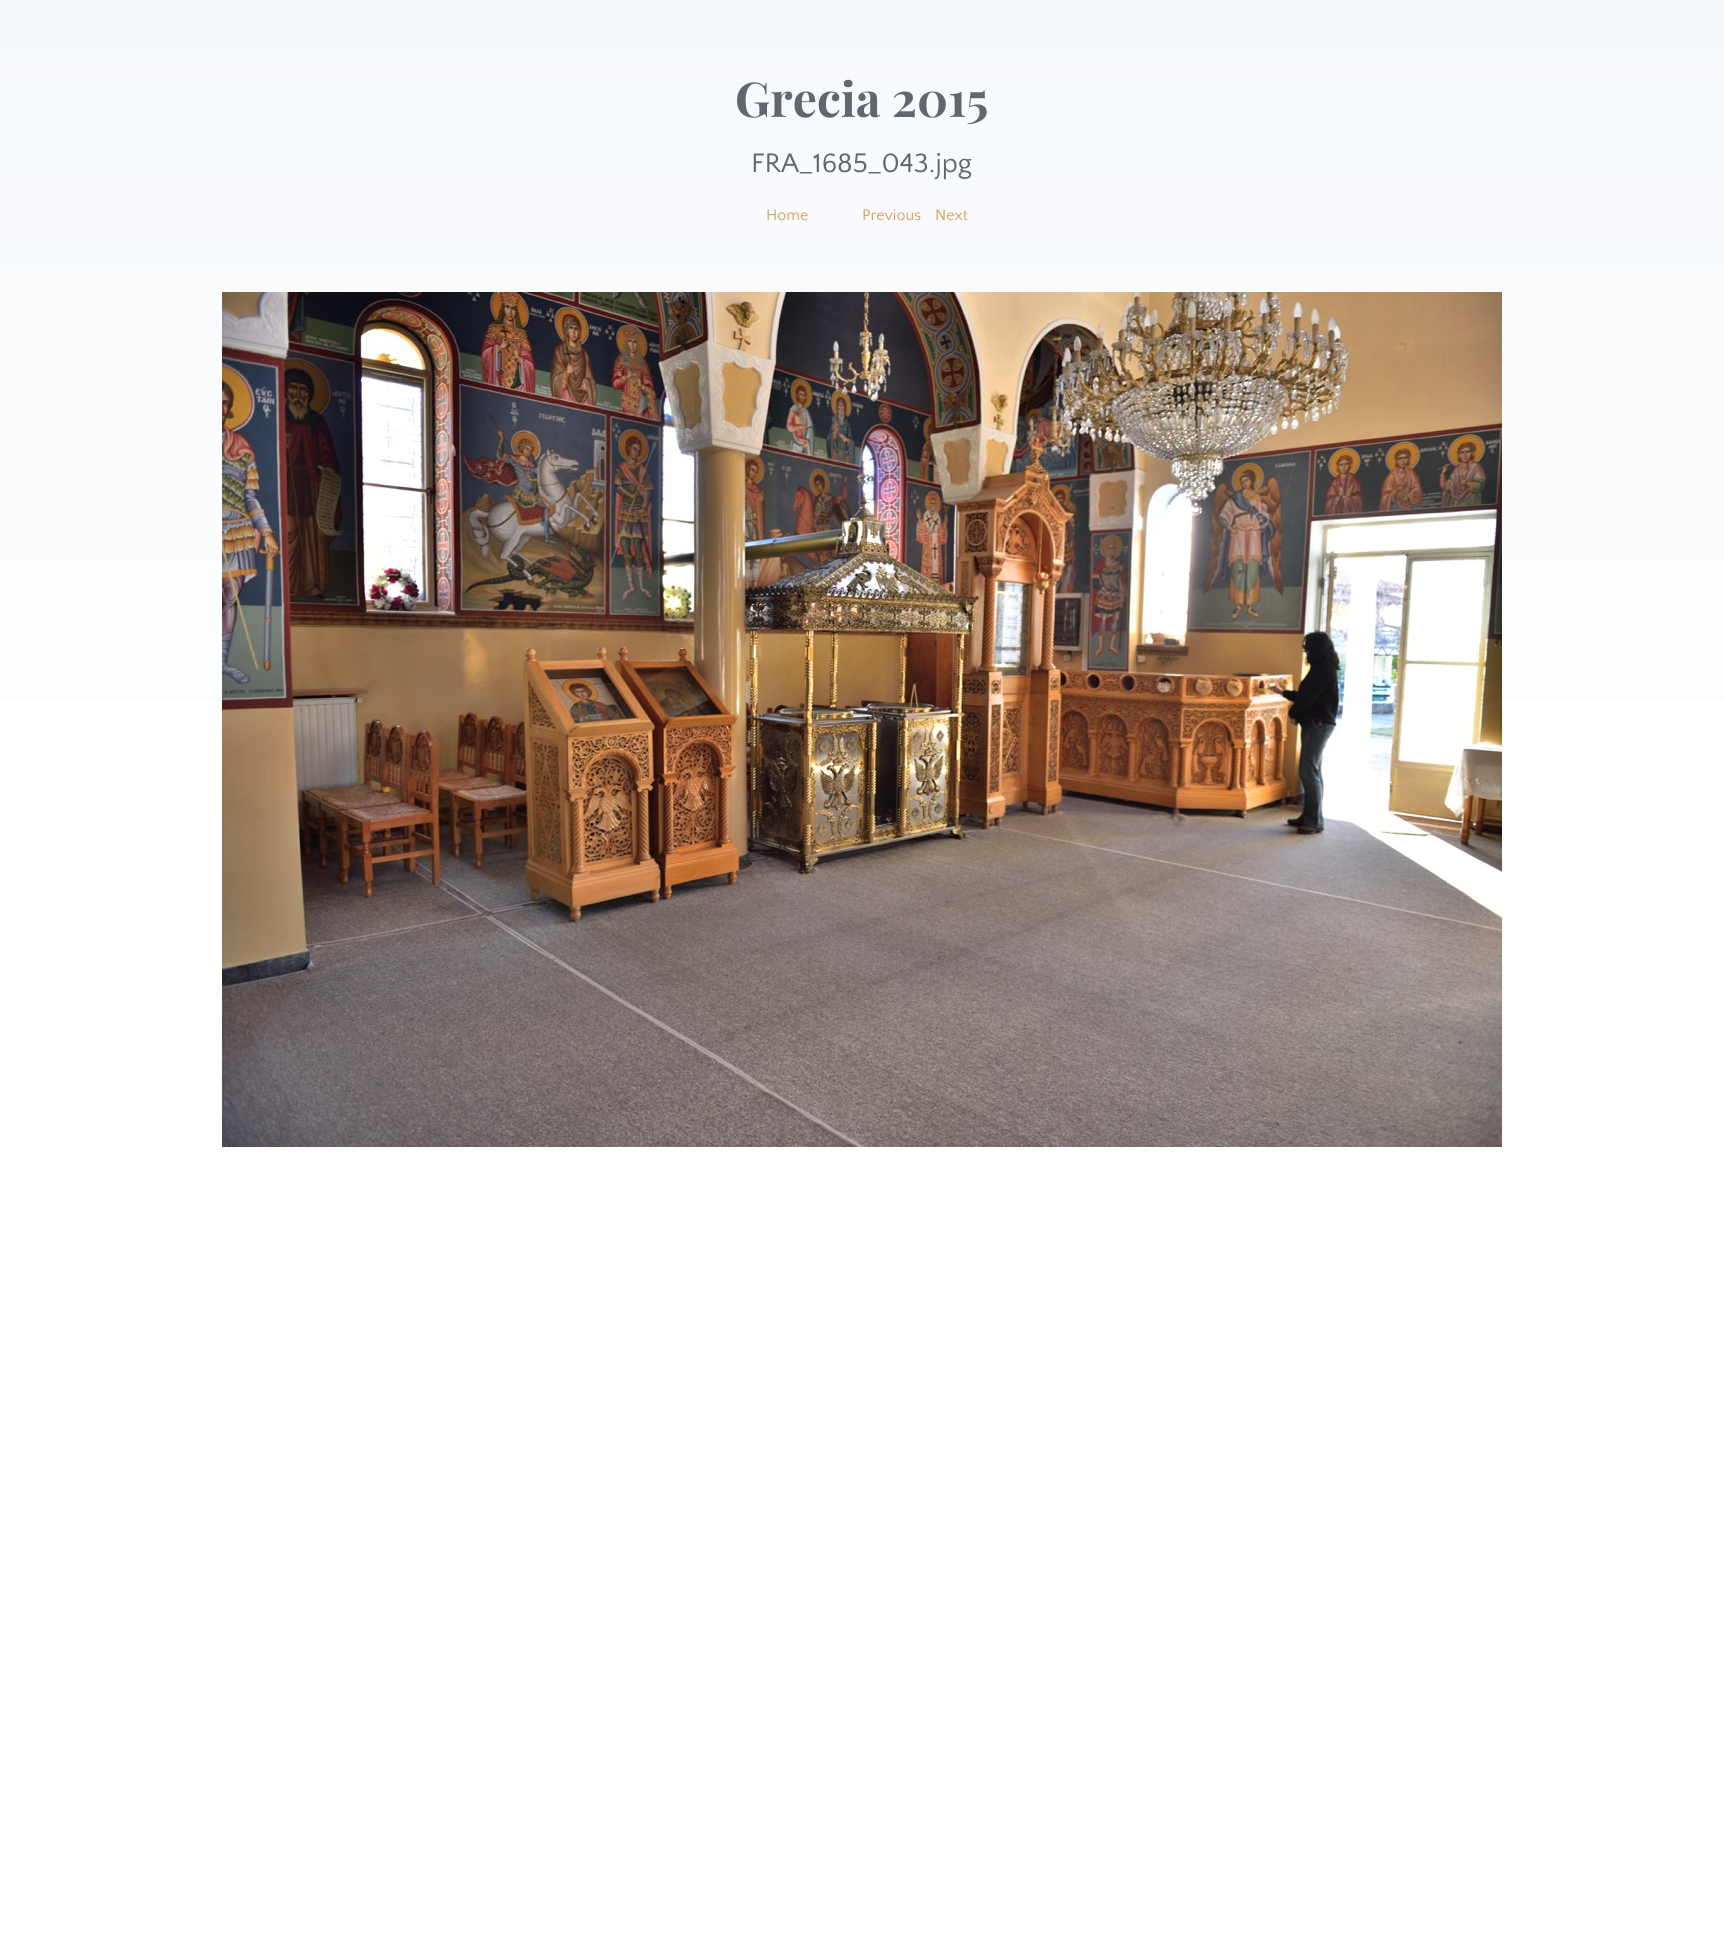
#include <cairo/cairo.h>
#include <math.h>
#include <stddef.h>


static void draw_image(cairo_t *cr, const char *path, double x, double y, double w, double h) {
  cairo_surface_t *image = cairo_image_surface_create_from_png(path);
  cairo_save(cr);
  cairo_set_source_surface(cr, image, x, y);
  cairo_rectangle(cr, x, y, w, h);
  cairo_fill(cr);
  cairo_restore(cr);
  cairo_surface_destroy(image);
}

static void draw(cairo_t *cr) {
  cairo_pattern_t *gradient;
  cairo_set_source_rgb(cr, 1, 1, 1);
  cairo_paint(cr);
  gradient = cairo_pattern_create_linear(862, 0, 862, 1211);
  cairo_pattern_add_color_stop_rgba(gradient, 0, 246 / 255.0, 249 / 255.0, 252 / 255.0, 1);
  cairo_pattern_add_color_stop_rgba(gradient, 0.8, 1, 1, 1, 1);
  cairo_set_source(cr, gradient);
  cairo_pattern_destroy(gradient);
  cairo_rectangle(cr, 0, 0, 1724, 700);
  cairo_fill(cr);
  draw_image(cr, "images/1.png", 222, 292, 1280, 855);
  cairo_select_font_face(cr, "Playfair Display", CAIRO_FONT_SLANT_NORMAL, CAIRO_FONT_WEIGHT_BOLD);
  cairo_set_font_size(cr, 48);
  cairo_set_source_rgb(cr, 95 / 255.0, 103 / 255.0, 111 / 255.0);
  cairo_move_to(cr, 735, 117);
  cairo_show_text(cr, "Grecia 2015");
  cairo_select_font_face(cr, "Quattrocento Sans", CAIRO_FONT_SLANT_NORMAL, CAIRO_FONT_WEIGHT_NORMAL);
  cairo_set_font_size(cr, 28);
  cairo_move_to(cr, 751, 172);
  cairo_show_text(cr, "FRA_1685_043.jpg");
  cairo_set_font_size(cr, 16);
  cairo_set_source_rgb(cr, 208 / 255.0, 162 / 255.0, 90 / 255.0);
  cairo_move_to(cr, 766, 220);
  cairo_show_text(cr, "Home");
  cairo_move_to(cr, 862, 220);
  cairo_show_text(cr, "Previous");
  cairo_move_to(cr, 935, 220);
  cairo_show_text(cr, "Next");
}

int main(void) {
  cairo_surface_t *surface = cairo_image_surface_create(CAIRO_FORMAT_RGB24, 1724, 1951);
  cairo_t *cr = cairo_create(surface);
  cairo_font_options_t *options = cairo_font_options_create();
  cairo_font_options_set_hint_metrics(options, CAIRO_HINT_METRICS_OFF);
  cairo_font_options_set_hint_style(options, CAIRO_HINT_STYLE_NONE);
  cairo_set_font_options(cr, options);
  cairo_set_miter_limit(cr, 4);
  draw(cr);
  cairo_surface_write_to_png(surface, "out.png");
  cairo_font_options_destroy(options);
  cairo_destroy(cr);
  cairo_surface_destroy(surface);
  return 0;
}
